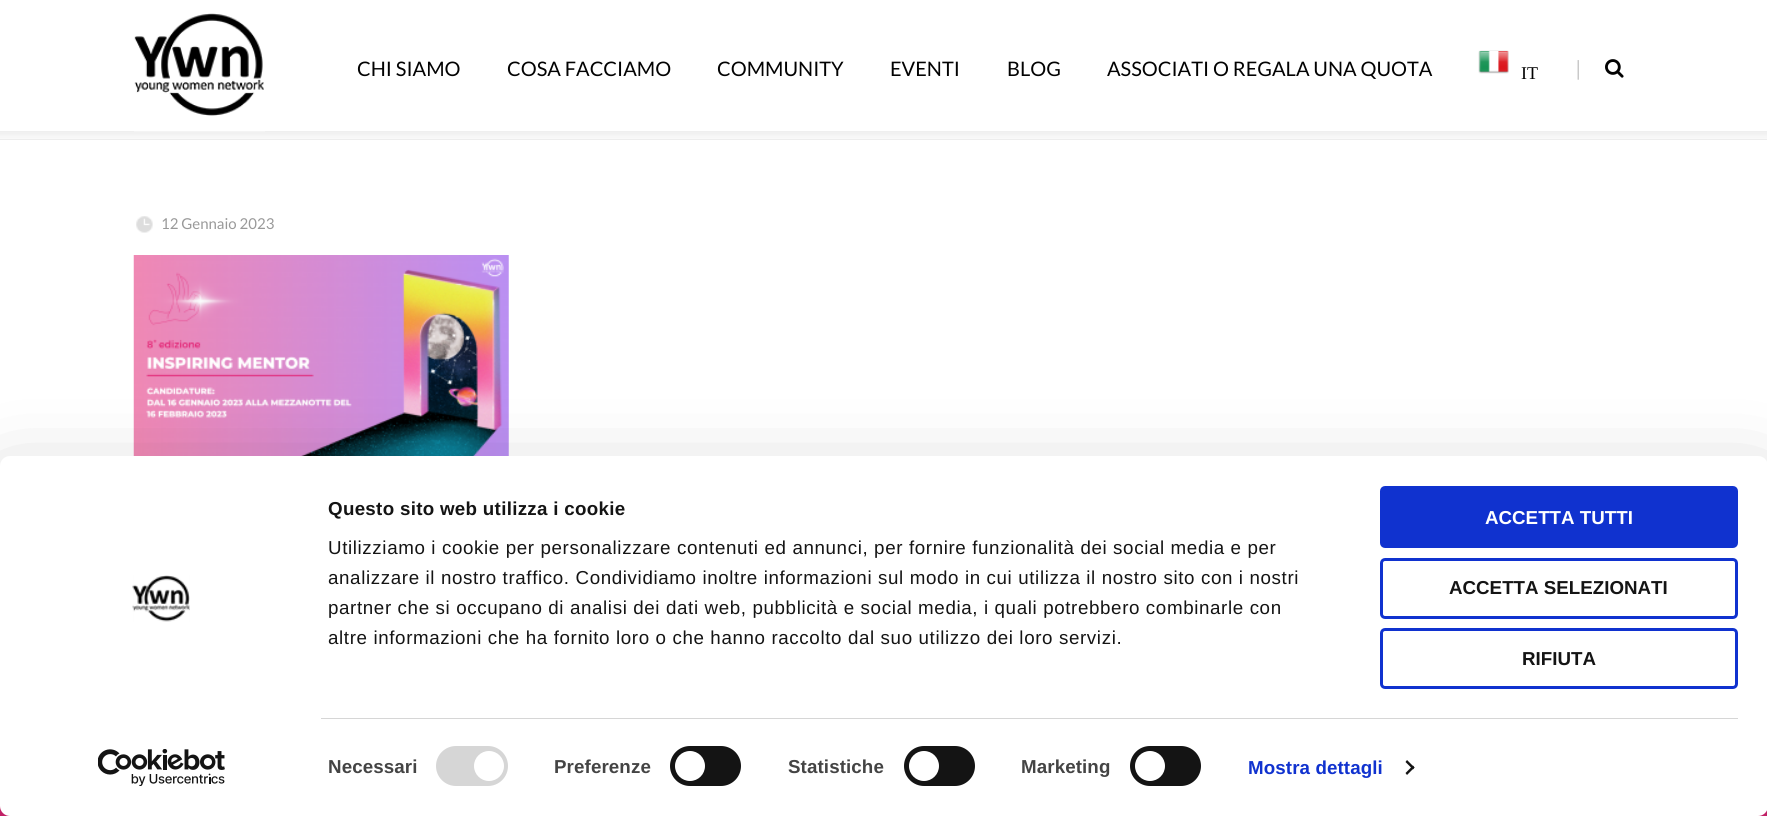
#include <cairo/cairo.h>
#include <math.h>
#include <stddef.h>


static void draw_spaced(cairo_t *cr, double x, double y, const char *s, double letter, double word) {
  cairo_move_to(cr, x, y);
  while (*s) {
    char ch[5] = {0};
    int n = 0;
    do ch[n++] = *s++; while ((*s & 0xC0) == 0x80);
    cairo_show_text(cr, ch);
    cairo_rel_move_to(cr, letter + word * (*ch == ' '), 0);
  }
}

static void rounded_rect(cairo_t *cr, double x, double y, double w, double h, double r) {
  cairo_new_sub_path(cr);
  cairo_arc(cr, x + w - r, y + h - r, r, 0, M_PI / 2);
  cairo_arc(cr, x + r, y + h - r, r, M_PI / 2, M_PI);
  cairo_arc(cr, x + r, y + r, r, M_PI, 1.5 * M_PI);
  cairo_arc(cr, x + w - r, y + r, r, 1.5 * M_PI, 2 * M_PI);
  cairo_close_path(cr);
}

static void draw_shadow(cairo_t *cr, double x, double y, double w, double h, double r, double blur, double alpha) {
  cairo_push_group_with_content(cr, CAIRO_CONTENT_ALPHA);
  cairo_set_operator(cr, CAIRO_OPERATOR_SOURCE);
  for (int i = 15; i >= -15 && fmin(w, h) + blur * i / 3 > 0; i -= 2) {
    double e = blur * i / 6;
    cairo_set_source_rgba(cr, 0, 0, 0, alpha * erfc((i - 1) / 8.5) / 2);
    rounded_rect(cr, x - e, y - e, w + 2 * e, h + 2 * e, fmax(0, fmin(r + e + blur * .6, fmin(w, h) / 2 + e)));
    cairo_fill(cr);
  }
  cairo_pattern_t *soft = cairo_pop_group(cr);
  cairo_mask(cr, soft);
  cairo_pattern_destroy(soft);
}

static void draw_image(cairo_t *cr, const char *path, double x, double y, double w, double h) {
  cairo_surface_t *image = cairo_image_surface_create_from_png(path);
  cairo_save(cr);
  cairo_set_source_surface(cr, image, x, y);
  cairo_rectangle(cr, x, y, w, h);
  cairo_fill(cr);
  cairo_restore(cr);
  cairo_surface_destroy(image);
}

static void draw(cairo_t *cr) {
  cairo_set_source_rgb(cr, 1, 1, 1);
  cairo_paint(cr);
  cairo_set_source_rgb(cr, 250 / 255.0, 250 / 255.0, 250 / 255.0);
  cairo_rectangle(cr, 0, 131, 1767, 8);
  cairo_fill(cr);
  cairo_set_source_rgb(cr, 238 / 255.0, 238 / 255.0, 238 / 255.0);
  cairo_rectangle(cr, 0, 139, 1767, 1);
  cairo_fill(cr);
  cairo_set_source_rgb(cr, 0, 0, 0);
  draw_shadow(cr, -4, -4, 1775, 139, 0, 3, 0.05);
  cairo_set_source_rgb(cr, 1, 1, 1);
  cairo_rectangle(cr, 0, 0, 1767, 131);
  cairo_fill(cr);
  draw_image(cr, "images/1.png", 134, 13, 131, 119);
  draw_image(cr, "images/2.png", 1478, 50, 31, 24);
  draw_image(cr, "images/3.png", 1605, 59, 19, 19);
  draw_image(cr, "images/4.png", 136, 216, 17, 17);
  draw_image(cr, "images/5.png", 133, 255, 376, 201);
  cairo_set_source_rgb(cr, 227 / 255.0, 39 / 255.0, 120 / 255.0);
  cairo_rectangle(cr, 0, 806, 1767, 10);
  cairo_fill(cr);
  cairo_set_source_rgb(cr, 0, 0, 0);
  draw_shadow(cr, 0, 494, 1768, 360, 10, 44, 0.3);
  cairo_set_source_rgb(cr, 1, 1, 1);
  rounded_rect(cr, 0, 456, 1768, 360, 10);
  cairo_fill(cr);
  draw_image(cr, "images/6.png", 132, 575, 58, 47);
  draw_image(cr, "images/7.png", 98, 749, 127, 37);
  cairo_set_source_rgb(cr, 214 / 255.0, 214 / 255.0, 214 / 255.0);
  cairo_rectangle(cr, 321, 718, 1417, 1);
  cairo_fill(cr);
  rounded_rect(cr, 436, 746, 72, 40, 20);
  cairo_fill(cr);
  cairo_set_source_rgb(cr, 1, 1, 1);
  cairo_arc(cr, 489, 766, 15, 0, 2 * M_PI);
  cairo_fill(cr);
  cairo_set_source_rgb(cr, 20 / 255.0, 20 / 255.0, 20 / 255.0);
  rounded_rect(cr, 670, 746, 71, 40, 20);
  cairo_fill(cr);
  cairo_set_source_rgb(cr, 1, 1, 1);
  cairo_arc(cr, 690, 766, 15, 0, 2 * M_PI);
  cairo_fill(cr);
  cairo_set_source_rgb(cr, 20 / 255.0, 20 / 255.0, 20 / 255.0);
  rounded_rect(cr, 904, 746, 71, 40, 20);
  cairo_fill(cr);
  cairo_set_source_rgb(cr, 1, 1, 1);
  cairo_arc(cr, 924, 766, 15, 0, 2 * M_PI);
  cairo_fill(cr);
  cairo_set_source_rgb(cr, 20 / 255.0, 20 / 255.0, 20 / 255.0);
  rounded_rect(cr, 1130, 746, 71, 40, 20);
  cairo_fill(cr);
  cairo_set_source_rgb(cr, 1, 1, 1);
  cairo_arc(cr, 1150, 766, 15, 0, 2 * M_PI);
  cairo_fill(cr);
  cairo_set_source_rgb(cr, 20 / 255.0, 20 / 255.0, 20 / 255.0);
  cairo_new_path(cr);
  cairo_move_to(cr, 1407, 760);
  cairo_line_to(cr, 1414.5, 767.5);
  cairo_line_to(cr, 1413, 769.5);
  cairo_line_to(cr, 1405.5, 762);
  cairo_close_path(cr);
  cairo_fill(cr);
  cairo_new_path(cr);
  cairo_move_to(cr, 1413, 765.5);
  cairo_line_to(cr, 1414.5, 767.5);
  cairo_line_to(cr, 1407, 775);
  cairo_line_to(cr, 1405.5, 773);
  cairo_close_path(cr);
  cairo_fill(cr);
  cairo_set_source_rgb(cr, 16 / 255.0, 50 / 255.0, 207 / 255.0);
  rounded_rect(cr, 1381.5, 487.5, 355, 59, 3.5);
  cairo_fill_preserve(cr);
  cairo_set_line_width(cr, 3);
  cairo_stroke(cr);
  rounded_rect(cr, 1381.5, 559.5, 355, 58, 3.5);
  cairo_stroke(cr);
  rounded_rect(cr, 1381.5, 629.5, 355, 58, 3.5);
  cairo_stroke(cr);
  cairo_select_font_face(cr, "Lato", CAIRO_FONT_SLANT_NORMAL, CAIRO_FONT_WEIGHT_NORMAL);
  cairo_set_font_size(cr, 20);
  cairo_set_source_rgb(cr, 2 / 255.0, 2 / 255.0, 2 / 255.0);
  cairo_move_to(cr, 357, 76);
  cairo_show_text(cr, "CHI SIAMO");
  cairo_move_to(cr, 507, 76);
  cairo_show_text(cr, "COSA FACCIAMO");
  cairo_move_to(cr, 717, 76);
  cairo_show_text(cr, "COMMUNITY");
  cairo_move_to(cr, 890, 76);
  cairo_show_text(cr, "EVENTI");
  cairo_move_to(cr, 1007, 76);
  cairo_show_text(cr, "BLOG");
  cairo_move_to(cr, 1107, 76);
  cairo_show_text(cr, "ASSOCIATI O REGALA UNA QUOTA");
  cairo_select_font_face(cr, "Liberation Serif", CAIRO_FONT_SLANT_NORMAL, CAIRO_FONT_WEIGHT_NORMAL);
  cairo_set_font_size(cr, 18);
  cairo_move_to(cr, 1521, 79);
  cairo_show_text(cr, "IT");
  cairo_select_font_face(cr, "Lato Light", CAIRO_FONT_SLANT_NORMAL, CAIRO_FONT_WEIGHT_NORMAL);
  cairo_set_font_size(cr, 21);
  cairo_set_source_rgb(cr, 153 / 255.0, 153 / 255.0, 153 / 255.0);
  cairo_move_to(cr, 1575, 76);
  cairo_show_text(cr, "|");
  cairo_select_font_face(cr, "Lato", CAIRO_FONT_SLANT_NORMAL, CAIRO_FONT_WEIGHT_NORMAL);
  cairo_set_font_size(cr, 15);
  cairo_move_to(cr, 161, 229);
  cairo_show_text(cr, "12 Gennaio 2023");
  cairo_select_font_face(cr, "Liberation Sans", CAIRO_FONT_SLANT_NORMAL, CAIRO_FONT_WEIGHT_BOLD);
  cairo_set_font_size(cr, 18.75);
  cairo_set_source_rgb(cr, 20 / 255.0, 20 / 255.0, 20 / 255.0);
  draw_spaced(cr, 328, 515, "Questo sito web utilizza i cookie", 0.3, 0);
  cairo_select_font_face(cr, "Liberation Sans", CAIRO_FONT_SLANT_NORMAL, CAIRO_FONT_WEIGHT_NORMAL);
  draw_spaced(cr, 328, 554, "Utilizziamo i cookie per personalizzare contenuti ed annunci, per fornire funzionalità dei social media e per", 0.62, 0);
  draw_spaced(cr, 328, 584, "analizzare il nostro traffico. Condividiamo inoltre informazioni sul modo in cui utilizza il nostro sito con i nostri", 0.62, 0);
  draw_spaced(cr, 328, 614, "partner che si occupano di analisi dei dati web, pubblicità e social media, i quali potrebbero combinarle con", 0.62, 0);
  draw_spaced(cr, 328, 644, "altre informazioni che ha fornito loro o che hanno raccolto dal suo utilizzo dei loro servizi.", 0.62, 0);
  cairo_select_font_face(cr, "Liberation Sans", CAIRO_FONT_SLANT_NORMAL, CAIRO_FONT_WEIGHT_BOLD);
  cairo_set_source_rgb(cr, 68 / 255.0, 68 / 255.0, 68 / 255.0);
  draw_spaced(cr, 328, 773, "Necessari", 0.1, 0);
  draw_spaced(cr, 554, 773, "Preferenze", 0.1, 0);
  draw_spaced(cr, 788, 773, "Statistiche", 0.1, 0);
  draw_spaced(cr, 1021, 773, "Marketing", 0.1, 0);
  cairo_set_source_rgb(cr, 16 / 255.0, 50 / 255.0, 207 / 255.0);
  draw_spaced(cr, 1248, 774, "Mostra dettagli", 0.1, 0);
  cairo_set_source_rgb(cr, 1, 1, 1);
  cairo_move_to(cr, 1485, 524);
  cairo_show_text(cr, "ACCETTA TUTTI");
  cairo_set_source_rgb(cr, 20 / 255.0, 20 / 255.0, 20 / 255.0);
  cairo_move_to(cr, 1449, 594);
  cairo_show_text(cr, "ACCETTA SELEZIONATI");
  cairo_move_to(cr, 1522, 665);
  cairo_show_text(cr, "RIFIUTA");
}

int main(void) {
  cairo_surface_t *surface = cairo_image_surface_create(CAIRO_FORMAT_RGB24, 1767, 816);
  cairo_t *cr = cairo_create(surface);
  cairo_font_options_t *options = cairo_font_options_create();
  cairo_font_options_set_hint_metrics(options, CAIRO_HINT_METRICS_OFF);
  cairo_font_options_set_hint_style(options, CAIRO_HINT_STYLE_NONE);
  cairo_set_font_options(cr, options);
  cairo_set_miter_limit(cr, 4);
  draw(cr);
  cairo_surface_write_to_png(surface, "out.png");
  cairo_font_options_destroy(options);
  cairo_destroy(cr);
  cairo_surface_destroy(surface);
  return 0;
}
